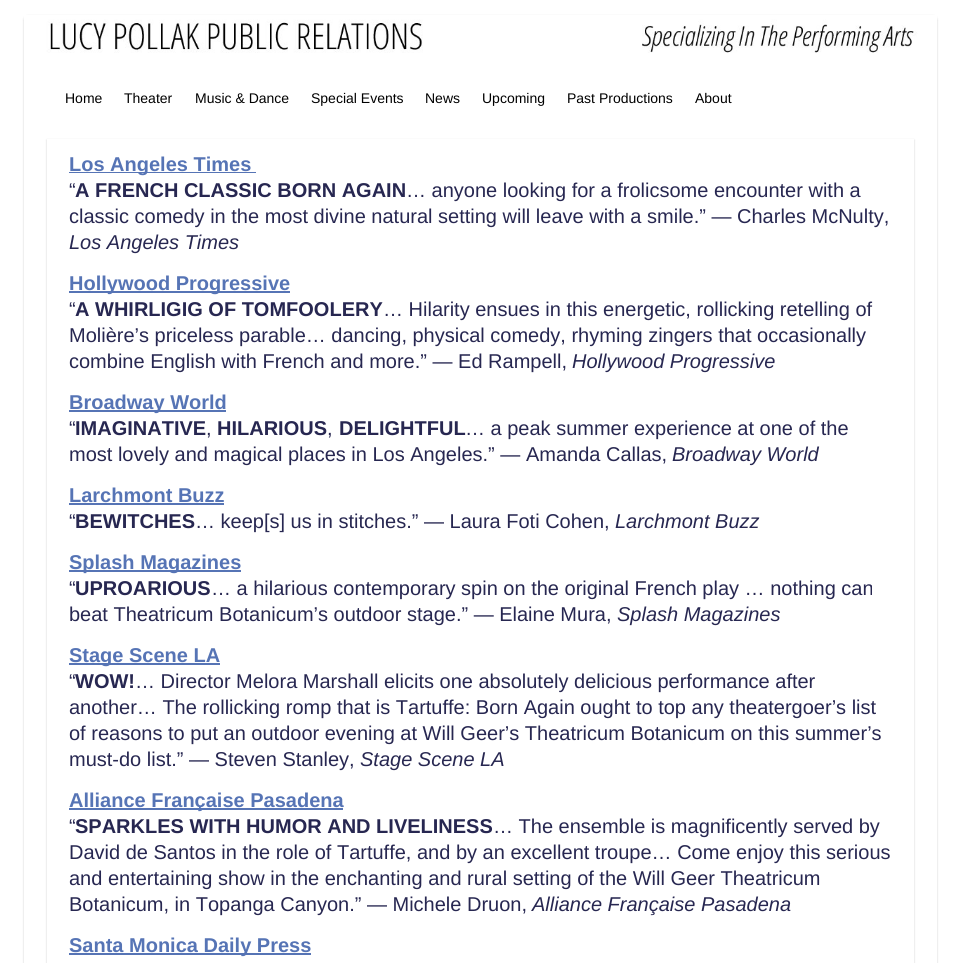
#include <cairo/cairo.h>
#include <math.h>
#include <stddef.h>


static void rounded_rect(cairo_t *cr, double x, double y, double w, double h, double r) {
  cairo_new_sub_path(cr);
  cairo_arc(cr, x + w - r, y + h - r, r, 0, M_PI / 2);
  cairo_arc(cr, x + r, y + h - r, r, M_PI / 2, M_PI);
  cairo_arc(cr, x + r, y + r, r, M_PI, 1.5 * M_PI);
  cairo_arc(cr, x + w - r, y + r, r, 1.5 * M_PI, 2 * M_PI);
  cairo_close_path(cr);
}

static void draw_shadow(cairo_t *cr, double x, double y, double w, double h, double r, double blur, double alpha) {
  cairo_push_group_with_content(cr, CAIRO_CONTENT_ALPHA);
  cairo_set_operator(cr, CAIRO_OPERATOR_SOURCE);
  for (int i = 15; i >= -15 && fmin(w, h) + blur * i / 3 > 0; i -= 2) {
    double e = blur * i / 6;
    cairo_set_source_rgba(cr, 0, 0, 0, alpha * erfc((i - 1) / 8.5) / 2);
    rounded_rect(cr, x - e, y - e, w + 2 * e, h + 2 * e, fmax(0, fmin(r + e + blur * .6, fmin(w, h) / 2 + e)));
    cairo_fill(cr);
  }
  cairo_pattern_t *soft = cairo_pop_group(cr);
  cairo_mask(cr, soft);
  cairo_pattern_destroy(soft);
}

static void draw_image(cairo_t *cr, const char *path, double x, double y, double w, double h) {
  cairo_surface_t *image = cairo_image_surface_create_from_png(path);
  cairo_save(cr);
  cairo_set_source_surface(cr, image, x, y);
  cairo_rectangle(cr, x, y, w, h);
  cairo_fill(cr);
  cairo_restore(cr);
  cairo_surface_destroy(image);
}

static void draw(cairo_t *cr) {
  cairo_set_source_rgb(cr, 1, 1, 1);
  cairo_paint(cr);
  cairo_set_source_rgb(cr, 0, 0, 0);
  draw_shadow(cr, 24, 16, 913, 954, 4, 1, 0.2);
  cairo_set_source_rgb(cr, 1, 1, 1);
  cairo_rectangle(cr, 24, 53, 913, 910);
  cairo_fill(cr);
  draw_image(cr, "images/1.png", 24, 15, 913, 38);
  cairo_save(cr);
  cairo_set_fill_rule(cr, CAIRO_FILL_RULE_EVEN_ODD);
  cairo_new_path(cr);
  cairo_move_to(cr, 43, 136);
  cairo_line_to(cr, 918, 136);
  cairo_line_to(cr, 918, 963);
  cairo_line_to(cr, 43, 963);
  cairo_close_path(cr);
  cairo_move_to(cr, 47, 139);
  cairo_line_to(cr, 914, 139);
  cairo_line_to(cr, 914, 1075);
  cairo_line_to(cr, 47, 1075);
  cairo_close_path(cr);
  cairo_clip(cr);
  cairo_set_source_rgb(cr, 0, 0, 0);
  draw_shadow(cr, 47, 140, 867, 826, 0, 1, 0.2);
  cairo_restore(cr);
  cairo_set_source_rgb(cr, 86 / 255.0, 116 / 255.0, 181 / 255.0);
  cairo_rectangle(cr, 69, 172, 187, 1);
  cairo_fill(cr);
  cairo_rectangle(cr, 69, 291, 221, 2);
  cairo_fill(cr);
  cairo_rectangle(cr, 69, 410, 157, 2);
  cairo_fill(cr);
  cairo_rectangle(cr, 69, 503, 155, 2);
  cairo_fill(cr);
  cairo_rectangle(cr, 69, 570, 172, 2);
  cairo_fill(cr);
  cairo_rectangle(cr, 69, 663, 151, 2);
  cairo_fill(cr);
  cairo_rectangle(cr, 69, 808, 274, 2);
  cairo_fill(cr);
  cairo_rectangle(cr, 69, 953, 242, 2);
  cairo_fill(cr);
  cairo_select_font_face(cr, "Liberation Sans", CAIRO_FONT_SLANT_NORMAL, CAIRO_FONT_WEIGHT_NORMAL);
  cairo_set_font_size(cr, 14);
  cairo_set_source_rgb(cr, 0, 0, 0);
  cairo_move_to(cr, 65, 103);
  cairo_show_text(cr, "Home");
  cairo_move_to(cr, 124, 103);
  cairo_show_text(cr, "Theater");
  cairo_move_to(cr, 195, 103);
  cairo_show_text(cr, "Music & Dance");
  cairo_move_to(cr, 311, 103);
  cairo_show_text(cr, "Special Events");
  cairo_move_to(cr, 425, 103);
  cairo_show_text(cr, "News");
  cairo_move_to(cr, 482, 103);
  cairo_show_text(cr, "Upcoming");
  cairo_move_to(cr, 567, 103);
  cairo_show_text(cr, "Past Productions");
  cairo_move_to(cr, 695, 103);
  cairo_show_text(cr, "About");
  cairo_select_font_face(cr, "Liberation Sans", CAIRO_FONT_SLANT_NORMAL, CAIRO_FONT_WEIGHT_BOLD);
  cairo_set_font_size(cr, 20);
  cairo_set_source_rgb(cr, 86 / 255.0, 116 / 255.0, 181 / 255.0);
  cairo_move_to(cr, 69, 171);
  cairo_show_text(cr, "Los Angeles Times");
  cairo_select_font_face(cr, "Liberation Sans", CAIRO_FONT_SLANT_NORMAL, CAIRO_FONT_WEIGHT_NORMAL);
  cairo_set_source_rgb(cr, 39 / 255.0, 39 / 255.0, 81 / 255.0);
  cairo_move_to(cr, 69, 197);
  cairo_show_text(cr, "“");
  cairo_select_font_face(cr, "Liberation Sans", CAIRO_FONT_SLANT_NORMAL, CAIRO_FONT_WEIGHT_BOLD);
  cairo_move_to(cr, 75, 197);
  cairo_show_text(cr, "A FRENCH CLASSIC BORN AGAIN");
  cairo_select_font_face(cr, "Liberation Sans", CAIRO_FONT_SLANT_NORMAL, CAIRO_FONT_WEIGHT_NORMAL);
  cairo_move_to(cr, 406, 197);
  cairo_show_text(cr, "… anyone looking for a frolicsome encounter with a");
  cairo_move_to(cr, 69, 223);
  cairo_show_text(cr, "classic comedy in the most divine natural setting will leave with a smile.” — Charles McNulty,");
  cairo_select_font_face(cr, "Liberation Sans", CAIRO_FONT_SLANT_ITALIC, CAIRO_FONT_WEIGHT_NORMAL);
  cairo_move_to(cr, 69, 249);
  cairo_show_text(cr, "Los Angeles Times");
  cairo_select_font_face(cr, "Liberation Sans", CAIRO_FONT_SLANT_NORMAL, CAIRO_FONT_WEIGHT_BOLD);
  cairo_set_source_rgb(cr, 86 / 255.0, 116 / 255.0, 181 / 255.0);
  cairo_move_to(cr, 69, 290);
  cairo_show_text(cr, "Hollywood Progressive");
  cairo_select_font_face(cr, "Liberation Sans", CAIRO_FONT_SLANT_NORMAL, CAIRO_FONT_WEIGHT_NORMAL);
  cairo_set_source_rgb(cr, 39 / 255.0, 39 / 255.0, 81 / 255.0);
  cairo_move_to(cr, 69, 316);
  cairo_show_text(cr, "“");
  cairo_select_font_face(cr, "Liberation Sans", CAIRO_FONT_SLANT_NORMAL, CAIRO_FONT_WEIGHT_BOLD);
  cairo_move_to(cr, 75, 316);
  cairo_show_text(cr, "A WHIRLIGIG OF TOMFOOLERY");
  cairo_select_font_face(cr, "Liberation Sans", CAIRO_FONT_SLANT_NORMAL, CAIRO_FONT_WEIGHT_NORMAL);
  cairo_move_to(cr, 383, 316);
  cairo_show_text(cr, "… Hilarity ensues in this energetic, rollicking retelling of");
  cairo_move_to(cr, 69, 342);
  cairo_show_text(cr, "Molière’s priceless parable… dancing, physical comedy, rhyming zingers that occasionally");
  cairo_move_to(cr, 69, 368);
  cairo_show_text(cr, "combine English with French and more.” — Ed Rampell,");
  cairo_select_font_face(cr, "Liberation Sans", CAIRO_FONT_SLANT_ITALIC, CAIRO_FONT_WEIGHT_NORMAL);
  cairo_move_to(cr, 572, 368);
  cairo_show_text(cr, "Hollywood Progressive");
  cairo_select_font_face(cr, "Liberation Sans", CAIRO_FONT_SLANT_NORMAL, CAIRO_FONT_WEIGHT_BOLD);
  cairo_set_source_rgb(cr, 86 / 255.0, 116 / 255.0, 181 / 255.0);
  cairo_move_to(cr, 69, 409);
  cairo_show_text(cr, "Broadway World");
  cairo_select_font_face(cr, "Liberation Sans", CAIRO_FONT_SLANT_NORMAL, CAIRO_FONT_WEIGHT_NORMAL);
  cairo_set_source_rgb(cr, 39 / 255.0, 39 / 255.0, 81 / 255.0);
  cairo_move_to(cr, 69, 435);
  cairo_show_text(cr, "“");
  cairo_select_font_face(cr, "Liberation Sans", CAIRO_FONT_SLANT_NORMAL, CAIRO_FONT_WEIGHT_BOLD);
  cairo_move_to(cr, 75, 435);
  cairo_show_text(cr, "IMAGINATIVE");
  cairo_select_font_face(cr, "Liberation Sans", CAIRO_FONT_SLANT_NORMAL, CAIRO_FONT_WEIGHT_NORMAL);
  cairo_move_to(cr, 206, 435);
  cairo_show_text(cr, ",");
  cairo_select_font_face(cr, "Liberation Sans", CAIRO_FONT_SLANT_NORMAL, CAIRO_FONT_WEIGHT_BOLD);
  cairo_move_to(cr, 217, 435);
  cairo_show_text(cr, "HILARIOUS");
  cairo_select_font_face(cr, "Liberation Sans", CAIRO_FONT_SLANT_NORMAL, CAIRO_FONT_WEIGHT_NORMAL);
  cairo_move_to(cr, 327, 435);
  cairo_show_text(cr, ",");
  cairo_select_font_face(cr, "Liberation Sans", CAIRO_FONT_SLANT_NORMAL, CAIRO_FONT_WEIGHT_BOLD);
  cairo_move_to(cr, 339, 435);
  cairo_show_text(cr, "DELIGHTFUL");
  cairo_select_font_face(cr, "Liberation Sans", CAIRO_FONT_SLANT_NORMAL, CAIRO_FONT_WEIGHT_NORMAL);
  cairo_move_to(cr, 465, 435);
  cairo_show_text(cr, "… a peak summer experience at one of the");
  cairo_move_to(cr, 69, 461);
  cairo_show_text(cr, "most lovely and magical places in Los Angeles.” — Amanda Callas,");
  cairo_select_font_face(cr, "Liberation Sans", CAIRO_FONT_SLANT_ITALIC, CAIRO_FONT_WEIGHT_NORMAL);
  cairo_move_to(cr, 672, 461);
  cairo_show_text(cr, "Broadway World");
  cairo_select_font_face(cr, "Liberation Sans", CAIRO_FONT_SLANT_NORMAL, CAIRO_FONT_WEIGHT_BOLD);
  cairo_set_source_rgb(cr, 86 / 255.0, 116 / 255.0, 181 / 255.0);
  cairo_move_to(cr, 69, 502);
  cairo_show_text(cr, "Larchmont Buzz");
  cairo_select_font_face(cr, "Liberation Sans", CAIRO_FONT_SLANT_NORMAL, CAIRO_FONT_WEIGHT_NORMAL);
  cairo_set_source_rgb(cr, 39 / 255.0, 39 / 255.0, 81 / 255.0);
  cairo_move_to(cr, 69, 528);
  cairo_show_text(cr, "“");
  cairo_select_font_face(cr, "Liberation Sans", CAIRO_FONT_SLANT_NORMAL, CAIRO_FONT_WEIGHT_BOLD);
  cairo_move_to(cr, 75, 528);
  cairo_show_text(cr, "BEWITCHES");
  cairo_select_font_face(cr, "Liberation Sans", CAIRO_FONT_SLANT_NORMAL, CAIRO_FONT_WEIGHT_NORMAL);
  cairo_move_to(cr, 195, 528);
  cairo_show_text(cr, "… keep[s] us in stitches.” — Laura Foti Cohen,");
  cairo_select_font_face(cr, "Liberation Sans", CAIRO_FONT_SLANT_ITALIC, CAIRO_FONT_WEIGHT_NORMAL);
  cairo_move_to(cr, 615, 528);
  cairo_show_text(cr, "Larchmont Buzz");
  cairo_select_font_face(cr, "Liberation Sans", CAIRO_FONT_SLANT_NORMAL, CAIRO_FONT_WEIGHT_BOLD);
  cairo_set_source_rgb(cr, 86 / 255.0, 116 / 255.0, 181 / 255.0);
  cairo_move_to(cr, 69, 569);
  cairo_show_text(cr, "Splash Magazines");
  cairo_select_font_face(cr, "Liberation Sans", CAIRO_FONT_SLANT_NORMAL, CAIRO_FONT_WEIGHT_NORMAL);
  cairo_set_source_rgb(cr, 39 / 255.0, 39 / 255.0, 81 / 255.0);
  cairo_move_to(cr, 69, 595);
  cairo_show_text(cr, "“");
  cairo_select_font_face(cr, "Liberation Sans", CAIRO_FONT_SLANT_NORMAL, CAIRO_FONT_WEIGHT_BOLD);
  cairo_move_to(cr, 75, 595);
  cairo_show_text(cr, "UPROARIOUS");
  cairo_select_font_face(cr, "Liberation Sans", CAIRO_FONT_SLANT_NORMAL, CAIRO_FONT_WEIGHT_NORMAL);
  cairo_move_to(cr, 211, 595);
  cairo_show_text(cr, "… a hilarious contemporary spin on the original French play … nothing can");
  cairo_move_to(cr, 69, 621);
  cairo_show_text(cr, "beat Theatricum Botanicum’s outdoor stage.” — Elaine Mura,");
  cairo_select_font_face(cr, "Liberation Sans", CAIRO_FONT_SLANT_ITALIC, CAIRO_FONT_WEIGHT_NORMAL);
  cairo_move_to(cr, 617, 621);
  cairo_show_text(cr, "Splash Magazines");
  cairo_select_font_face(cr, "Liberation Sans", CAIRO_FONT_SLANT_NORMAL, CAIRO_FONT_WEIGHT_BOLD);
  cairo_set_source_rgb(cr, 86 / 255.0, 116 / 255.0, 181 / 255.0);
  cairo_move_to(cr, 69, 662);
  cairo_show_text(cr, "Stage Scene LA");
  cairo_select_font_face(cr, "Liberation Sans", CAIRO_FONT_SLANT_NORMAL, CAIRO_FONT_WEIGHT_NORMAL);
  cairo_set_source_rgb(cr, 39 / 255.0, 39 / 255.0, 81 / 255.0);
  cairo_move_to(cr, 69, 688);
  cairo_show_text(cr, "“");
  cairo_select_font_face(cr, "Liberation Sans", CAIRO_FONT_SLANT_NORMAL, CAIRO_FONT_WEIGHT_BOLD);
  cairo_move_to(cr, 75, 688);
  cairo_show_text(cr, "WOW!");
  cairo_select_font_face(cr, "Liberation Sans", CAIRO_FONT_SLANT_NORMAL, CAIRO_FONT_WEIGHT_NORMAL);
  cairo_move_to(cr, 135, 688);
  cairo_show_text(cr, "… Director Melora Marshall elicits one absolutely delicious performance after");
  cairo_move_to(cr, 69, 714);
  cairo_show_text(cr, "another… The rollicking romp that is Tartuffe: Born Again ought to top any theatergoer’s list");
  cairo_move_to(cr, 69, 740);
  cairo_show_text(cr, "of reasons to put an outdoor evening at Will Geer’s Theatricum Botanicum on this summer’s");
  cairo_move_to(cr, 69, 766);
  cairo_show_text(cr, "must-do list.” — Steven Stanley,");
  cairo_select_font_face(cr, "Liberation Sans", CAIRO_FONT_SLANT_ITALIC, CAIRO_FONT_WEIGHT_NORMAL);
  cairo_move_to(cr, 360, 766);
  cairo_show_text(cr, "Stage Scene LA");
  cairo_select_font_face(cr, "Liberation Sans", CAIRO_FONT_SLANT_NORMAL, CAIRO_FONT_WEIGHT_BOLD);
  cairo_set_source_rgb(cr, 86 / 255.0, 116 / 255.0, 181 / 255.0);
  cairo_move_to(cr, 69, 807);
  cairo_show_text(cr, "Alliance Française Pasadena");
  cairo_select_font_face(cr, "Liberation Sans", CAIRO_FONT_SLANT_NORMAL, CAIRO_FONT_WEIGHT_NORMAL);
  cairo_set_source_rgb(cr, 39 / 255.0, 39 / 255.0, 81 / 255.0);
  cairo_move_to(cr, 69, 833);
  cairo_show_text(cr, "“");
  cairo_select_font_face(cr, "Liberation Sans", CAIRO_FONT_SLANT_NORMAL, CAIRO_FONT_WEIGHT_BOLD);
  cairo_move_to(cr, 75, 833);
  cairo_show_text(cr, "SPARKLES WITH HUMOR AND LIVELINESS");
  cairo_select_font_face(cr, "Liberation Sans", CAIRO_FONT_SLANT_NORMAL, CAIRO_FONT_WEIGHT_NORMAL);
  cairo_move_to(cr, 493, 833);
  cairo_show_text(cr, "… The ensemble is magnificently served by");
  cairo_move_to(cr, 69, 859);
  cairo_show_text(cr, "David de Santos in the role of Tartuffe, and by an excellent troupe… Come enjoy this serious");
  cairo_move_to(cr, 69, 885);
  cairo_show_text(cr, "and entertaining show in the enchanting and rural setting of the Will Geer Theatricum");
  cairo_move_to(cr, 69, 911);
  cairo_show_text(cr, "Botanicum, in Topanga Canyon.” — Michele Druon,");
  cairo_select_font_face(cr, "Liberation Sans", CAIRO_FONT_SLANT_ITALIC, CAIRO_FONT_WEIGHT_NORMAL);
  cairo_move_to(cr, 532, 911);
  cairo_show_text(cr, "Alliance Française Pasadena");
  cairo_select_font_face(cr, "Liberation Sans", CAIRO_FONT_SLANT_NORMAL, CAIRO_FONT_WEIGHT_BOLD);
  cairo_set_source_rgb(cr, 86 / 255.0, 116 / 255.0, 181 / 255.0);
  cairo_move_to(cr, 69, 952);
  cairo_show_text(cr, "Santa Monica Daily Press");
}

int main(void) {
  cairo_surface_t *surface = cairo_image_surface_create(CAIRO_FORMAT_RGB24, 961, 963);
  cairo_t *cr = cairo_create(surface);
  cairo_font_options_t *options = cairo_font_options_create();
  cairo_font_options_set_hint_metrics(options, CAIRO_HINT_METRICS_OFF);
  cairo_font_options_set_hint_style(options, CAIRO_HINT_STYLE_NONE);
  cairo_set_font_options(cr, options);
  cairo_set_miter_limit(cr, 4);
  draw(cr);
  cairo_surface_write_to_png(surface, "out.png");
  cairo_font_options_destroy(options);
  cairo_destroy(cr);
  cairo_surface_destroy(surface);
  return 0;
}
